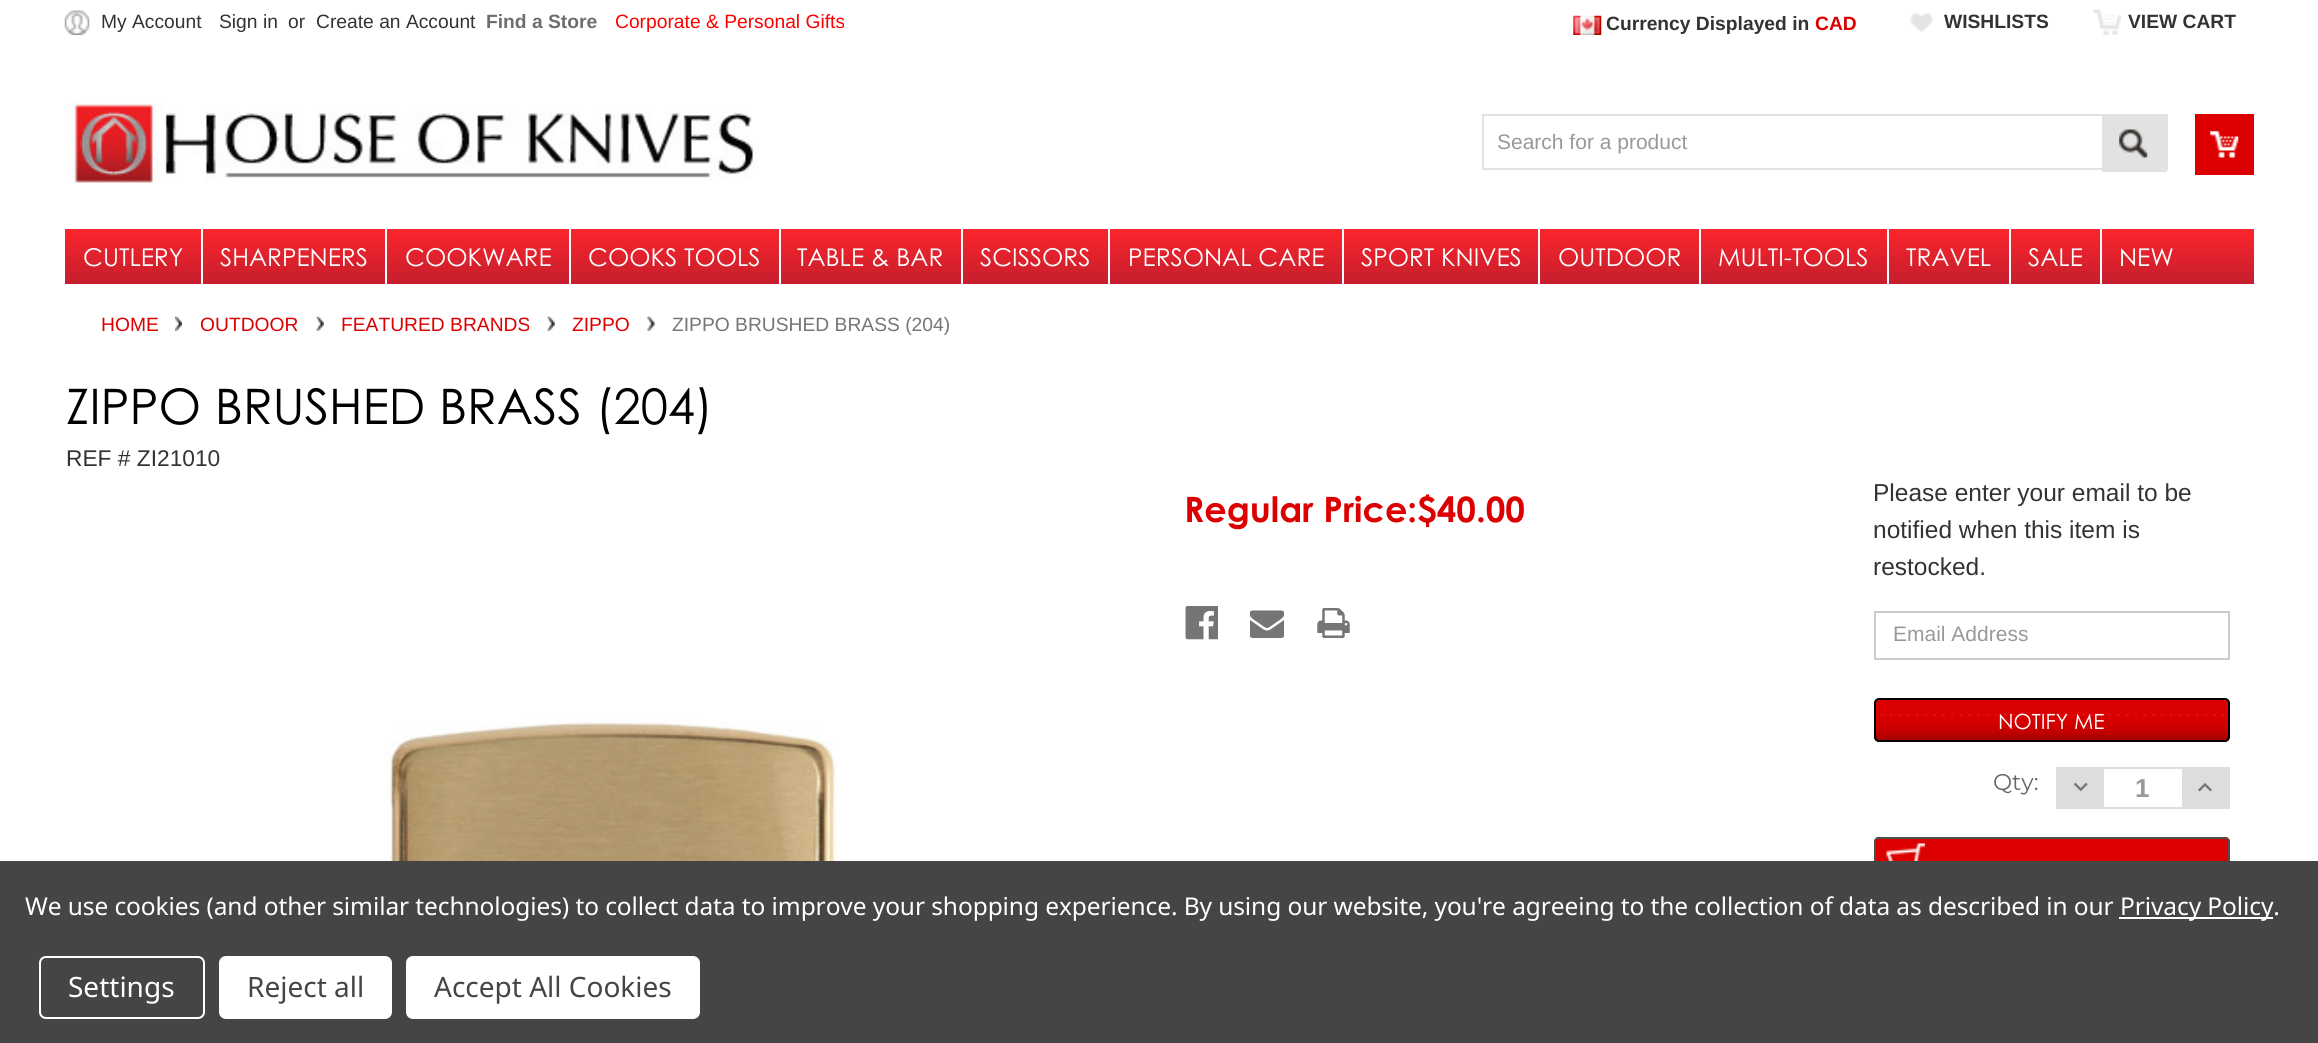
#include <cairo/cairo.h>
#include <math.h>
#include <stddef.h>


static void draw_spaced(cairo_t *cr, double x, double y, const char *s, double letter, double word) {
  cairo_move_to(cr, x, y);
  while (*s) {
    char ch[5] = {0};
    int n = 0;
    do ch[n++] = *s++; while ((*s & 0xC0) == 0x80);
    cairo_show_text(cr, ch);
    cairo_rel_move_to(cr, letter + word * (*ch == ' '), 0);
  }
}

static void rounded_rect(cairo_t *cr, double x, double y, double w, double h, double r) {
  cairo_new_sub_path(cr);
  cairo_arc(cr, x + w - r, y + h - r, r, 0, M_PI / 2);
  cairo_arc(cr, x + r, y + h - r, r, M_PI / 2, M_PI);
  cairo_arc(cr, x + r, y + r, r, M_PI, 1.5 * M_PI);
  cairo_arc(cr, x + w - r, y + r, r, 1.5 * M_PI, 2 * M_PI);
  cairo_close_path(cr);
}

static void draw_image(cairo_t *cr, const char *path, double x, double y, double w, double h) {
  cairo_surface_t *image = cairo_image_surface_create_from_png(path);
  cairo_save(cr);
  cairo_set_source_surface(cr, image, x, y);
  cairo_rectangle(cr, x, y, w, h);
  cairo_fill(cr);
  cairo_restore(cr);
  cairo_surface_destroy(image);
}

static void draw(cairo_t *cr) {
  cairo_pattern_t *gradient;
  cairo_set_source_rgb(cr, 1, 1, 1);
  cairo_paint(cr);
  draw_image(cr, "images/1.png", 64, 10, 26, 25);
  draw_image(cr, "images/2.png", 1573, 15, 29, 20);
  draw_image(cr, "images/3.png", 1910, 12, 23, 20);
  draw_image(cr, "images/4.png", 2093, 9, 28, 26);
  draw_image(cr, "images/5.png", 65, 98, 693, 85);
  cairo_rectangle(cr, 1483, 115, 684, 54);
  cairo_set_source_rgb(cr, 226 / 255.0, 226 / 255.0, 226 / 255.0);
  cairo_stroke(cr);
  cairo_rectangle(cr, 2102, 116, 65, 56);
  cairo_fill(cr);
  draw_image(cr, "images/6.png", 2119, 129, 29, 29);
  cairo_set_source_rgb(cr, 220 / 255.0, 0, 0);
  cairo_rectangle(cr, 2195, 114, 59, 61);
  cairo_fill(cr);
  draw_image(cr, "images/7.png", 2210, 131, 29, 27);
  gradient = cairo_pattern_create_linear(1159, 229, 1159, 284);
  cairo_pattern_add_color_stop_rgba(gradient, 0, 252 / 255.0, 37 / 255.0, 45 / 255.0, 1);
  cairo_pattern_add_color_stop_rgba(gradient, 1, 196 / 255.0, 30 / 255.0, 44 / 255.0, 1);
  cairo_set_source(cr, gradient);
  cairo_pattern_destroy(gradient);
  cairo_rectangle(cr, 65, 229, 2189, 55);
  cairo_fill(cr);
  cairo_set_source_rgb(cr, 1, 1, 1);
  cairo_rectangle(cr, 201, 229, 2, 55);
  cairo_fill(cr);
  cairo_rectangle(cr, 385, 229, 2, 55);
  cairo_fill(cr);
  cairo_rectangle(cr, 569, 229, 2, 55);
  cairo_fill(cr);
  cairo_rectangle(cr, 779, 229, 2, 55);
  cairo_fill(cr);
  cairo_rectangle(cr, 961, 229, 2, 55);
  cairo_fill(cr);
  cairo_rectangle(cr, 1108, 229, 2, 55);
  cairo_fill(cr);
  cairo_rectangle(cr, 1342, 229, 2, 55);
  cairo_fill(cr);
  cairo_rectangle(cr, 1538, 229, 2, 55);
  cairo_fill(cr);
  cairo_rectangle(cr, 1699, 229, 2, 55);
  cairo_fill(cr);
  cairo_rectangle(cr, 1887, 229, 2, 55);
  cairo_fill(cr);
  cairo_rectangle(cr, 2009, 229, 2, 55);
  cairo_fill(cr);
  cairo_rectangle(cr, 2100, 229, 2, 55);
  cairo_fill(cr);
  draw_image(cr, "images/8.png", 175, 316, 7, 15);
  draw_image(cr, "images/9.png", 316, 316, 8, 15);
  draw_image(cr, "images/9.png", 547, 316, 8, 15);
  draw_image(cr, "images/10.png", 647, 316, 8, 15);
  draw_image(cr, "images/11.png", 371, 713, 466, 148);
  draw_image(cr, "images/12.png", 1185, 606, 33, 34);
  draw_image(cr, "images/13.png", 1250, 610, 34, 28);
  draw_image(cr, "images/14.png", 1317, 608, 33, 30);
  cairo_rectangle(cr, 1875, 612, 354, 47);
  cairo_set_source_rgb(cr, 204 / 255.0, 204 / 255.0, 204 / 255.0);
  cairo_stroke(cr);
  draw_image(cr, "images/15.png", 1874, 698, 356, 44);
  rounded_rect(cr, 1875, 699, 354, 42, 4);
  cairo_set_source_rgb(cr, 0, 0, 0);
  cairo_stroke(cr);
  cairo_rectangle(cr, 2057, 768, 172, 40);
  cairo_set_source_rgb(cr, 221 / 255.0, 221 / 255.0, 221 / 255.0);
  cairo_stroke(cr);
  cairo_rectangle(cr, 2058, 769, 46, 38);
  cairo_fill(cr);
  draw_image(cr, "images/16.png", 2073, 782, 15, 10);
  cairo_rectangle(cr, 2182, 769, 46, 38);
  cairo_fill(cr);
  draw_image(cr, "images/17.png", 2198, 783, 14, 9);
  cairo_set_source_rgb(cr, 220 / 255.0, 0, 0);
  rounded_rect(cr, 1874, 837, 356, 52, 5);
  cairo_fill(cr);
  draw_image(cr, "images/18.png", 1886, 843, 39, 18);
  rounded_rect(cr, 1875, 838, 354, 50, 4);
  cairo_set_source_rgb(cr, 78 / 255.0, 78 / 255.0, 78 / 255.0);
  cairo_stroke(cr);
  cairo_set_source_rgb(cr, 69 / 255.0, 69 / 255.0, 69 / 255.0);
  cairo_rectangle(cr, 0, 861, 2318, 182);
  cairo_fill(cr);
  cairo_set_source_rgb(cr, 1, 1, 1);
  cairo_rectangle(cr, 2119, 917, 154, 2);
  cairo_fill(cr);
  rounded_rect(cr, 40, 957, 164, 61, 6);
  cairo_stroke(cr);
  rounded_rect(cr, 219, 956, 173, 63, 7);
  cairo_fill(cr);
  rounded_rect(cr, 406, 956, 294, 63, 7);
  cairo_fill(cr);
  cairo_select_font_face(cr, "Liberation Sans", CAIRO_FONT_SLANT_NORMAL, CAIRO_FONT_WEIGHT_NORMAL);
  cairo_set_font_size(cr, 19.25);
  cairo_set_source_rgb(cr, 51 / 255.0, 51 / 255.0, 51 / 255.0);
  cairo_move_to(cr, 101, 28);
  cairo_show_text(cr, "My Account");
  cairo_move_to(cr, 219, 28);
  cairo_show_text(cr, "Sign in");
  cairo_move_to(cr, 288, 28);
  cairo_show_text(cr, "or");
  cairo_move_to(cr, 316, 28);
  cairo_show_text(cr, "Create an Account");
  cairo_select_font_face(cr, "Liberation Sans", CAIRO_FONT_SLANT_NORMAL, CAIRO_FONT_WEIGHT_BOLD);
  cairo_set_source_rgb(cr, 110 / 255.0, 110 / 255.0, 110 / 255.0);
  cairo_move_to(cr, 486, 28);
  cairo_show_text(cr, "Find a Store");
  cairo_select_font_face(cr, "Liberation Sans", CAIRO_FONT_SLANT_NORMAL, CAIRO_FONT_WEIGHT_NORMAL);
  cairo_set_source_rgb(cr, 1, 0, 0);
  cairo_move_to(cr, 615, 28);
  cairo_show_text(cr, "Corporate & Personal Gifts");
  cairo_select_font_face(cr, "Liberation Sans", CAIRO_FONT_SLANT_NORMAL, CAIRO_FONT_WEIGHT_BOLD);
  cairo_set_source_rgb(cr, 51 / 255.0, 51 / 255.0, 51 / 255.0);
  cairo_move_to(cr, 1606, 30);
  cairo_show_text(cr, "Currency Displayed in");
  cairo_set_source_rgb(cr, 220 / 255.0, 0, 0);
  cairo_move_to(cr, 1815, 30);
  cairo_show_text(cr, "CAD");
  cairo_set_source_rgb(cr, 51 / 255.0, 51 / 255.0, 51 / 255.0);
  cairo_move_to(cr, 1944, 28);
  cairo_show_text(cr, "WISHLISTS");
  cairo_move_to(cr, 2128, 28);
  cairo_show_text(cr, "VIEW CART");
  cairo_select_font_face(cr, "Liberation Sans", CAIRO_FONT_SLANT_NORMAL, CAIRO_FONT_WEIGHT_NORMAL);
  cairo_set_font_size(cr, 21);
  cairo_set_source_rgb(cr, 153 / 255.0, 153 / 255.0, 153 / 255.0);
  cairo_move_to(cr, 1497, 149);
  cairo_show_text(cr, "Search for a product");
  cairo_select_font_face(cr, "Century Gothic", CAIRO_FONT_SLANT_NORMAL, CAIRO_FONT_WEIGHT_NORMAL);
  cairo_set_font_size(cr, 24.5);
  cairo_set_source_rgb(cr, 1, 1, 1);
  cairo_move_to(cr, 83, 266);
  cairo_show_text(cr, "CUTLERY");
  cairo_move_to(cr, 220, 266);
  cairo_show_text(cr, "SHARPENERS");
  cairo_move_to(cr, 405, 266);
  cairo_show_text(cr, "COOKWARE");
  cairo_move_to(cr, 588, 266);
  cairo_show_text(cr, "COOKS TOOLS");
  cairo_move_to(cr, 797, 266);
  cairo_show_text(cr, "TABLE & BAR");
  cairo_move_to(cr, 980, 266);
  cairo_show_text(cr, "SCISSORS");
  cairo_move_to(cr, 1128, 266);
  cairo_show_text(cr, "PERSONAL CARE");
  cairo_move_to(cr, 1361, 266);
  cairo_show_text(cr, "SPORT KNIVES");
  cairo_move_to(cr, 1558, 266);
  cairo_show_text(cr, "OUTDOOR");
  cairo_move_to(cr, 1718, 266);
  cairo_show_text(cr, "MULTI-TOOLS");
  cairo_move_to(cr, 1906, 266);
  cairo_show_text(cr, "TRAVEL");
  cairo_move_to(cr, 2028, 266);
  cairo_show_text(cr, "SALE");
  cairo_move_to(cr, 2119, 266);
  cairo_show_text(cr, "NEW");
  cairo_select_font_face(cr, "Liberation Sans", CAIRO_FONT_SLANT_NORMAL, CAIRO_FONT_WEIGHT_NORMAL);
  cairo_set_font_size(cr, 19.25);
  cairo_set_source_rgb(cr, 220 / 255.0, 0, 0);
  cairo_move_to(cr, 101, 331);
  cairo_show_text(cr, "HOME");
  cairo_move_to(cr, 200, 331);
  cairo_show_text(cr, "OUTDOOR");
  cairo_move_to(cr, 341, 331);
  cairo_show_text(cr, "FEATURED BRANDS");
  cairo_move_to(cr, 572, 331);
  cairo_show_text(cr, "ZIPPO");
  cairo_set_source_rgb(cr, 117 / 255.0, 117 / 255.0, 117 / 255.0);
  cairo_move_to(cr, 672, 331);
  cairo_show_text(cr, "ZIPPO BRUSHED BRASS (204)");
  cairo_select_font_face(cr, "Century Gothic", CAIRO_FONT_SLANT_NORMAL, CAIRO_FONT_WEIGHT_NORMAL);
  cairo_set_font_size(cr, 49);
  cairo_set_source_rgb(cr, 0, 0, 0);
  cairo_move_to(cr, 66, 424);
  cairo_show_text(cr, "ZIPPO BRUSHED BRASS (204)");
  cairo_select_font_face(cr, "Liberation Sans", CAIRO_FONT_SLANT_NORMAL, CAIRO_FONT_WEIGHT_NORMAL);
  cairo_set_font_size(cr, 22.75);
  cairo_set_source_rgb(cr, 51 / 255.0, 51 / 255.0, 51 / 255.0);
  cairo_move_to(cr, 66, 466);
  cairo_show_text(cr, "REF # ZI21010");
  cairo_select_font_face(cr, "Century Gothic", CAIRO_FONT_SLANT_NORMAL, CAIRO_FONT_WEIGHT_BOLD);
  cairo_set_font_size(cr, 35);
  cairo_set_source_rgb(cr, 220 / 255.0, 0, 0);
  cairo_move_to(cr, 1184, 522);
  cairo_show_text(cr, "Regular Price:$40.00");
  cairo_select_font_face(cr, "Liberation Sans", CAIRO_FONT_SLANT_NORMAL, CAIRO_FONT_WEIGHT_NORMAL);
  cairo_set_font_size(cr, 24.5);
  cairo_set_source_rgb(cr, 51 / 255.0, 51 / 255.0, 51 / 255.0);
  cairo_move_to(cr, 1873, 501);
  cairo_show_text(cr, "Please enter your email to be");
  cairo_move_to(cr, 1873, 538);
  cairo_show_text(cr, "notified when this item is");
  cairo_move_to(cr, 1873, 575);
  cairo_show_text(cr, "restocked.");
  cairo_set_font_size(cr, 21);
  cairo_set_source_rgb(cr, 153 / 255.0, 153 / 255.0, 153 / 255.0);
  cairo_move_to(cr, 1893, 641);
  cairo_show_text(cr, "Email Address");
  cairo_select_font_face(cr, "Century Gothic", CAIRO_FONT_SLANT_NORMAL, CAIRO_FONT_WEIGHT_NORMAL);
  cairo_set_source_rgb(cr, 1, 1, 1);
  cairo_move_to(cr, 1998, 729);
  cairo_show_text(cr, "NOTIFY ME");
  cairo_select_font_face(cr, "Montserrat Thin", CAIRO_FONT_SLANT_NORMAL, CAIRO_FONT_WEIGHT_NORMAL);
  cairo_set_font_size(cr, 22.75);
  cairo_set_source_rgb(cr, 102 / 255.0, 102 / 255.0, 102 / 255.0);
  cairo_move_to(cr, 1993, 790);
  cairo_show_text(cr, "Qty:");
  cairo_select_font_face(cr, "Liberation Sans", CAIRO_FONT_SLANT_NORMAL, CAIRO_FONT_WEIGHT_BOLD);
  cairo_set_font_size(cr, 26);
  cairo_set_source_rgb(cr, 153 / 255.0, 153 / 255.0, 153 / 255.0);
  cairo_move_to(cr, 2135, 797);
  cairo_show_text(cr, "1");
  cairo_select_font_face(cr, "Noto Sans", CAIRO_FONT_SLANT_NORMAL, CAIRO_FONT_WEIGHT_NORMAL);
  cairo_set_font_size(cr, 24.5);
  cairo_set_source_rgb(cr, 1, 1, 1);
  draw_spaced(cr, 25, 915, "We use cookies (and other similar technologies) to collect data to improve your shopping experience. By using our website, you're agreeing to the collection of data as described in our", -0.09, 0);
  draw_spaced(cr, 2120, 915, "Privacy Policy.", -0.09, 0);
  cairo_set_font_size(cr, 28);
  cairo_move_to(cr, 68, 997);
  cairo_show_text(cr, "Settings");
  cairo_set_source_rgb(cr, 69 / 255.0, 69 / 255.0, 69 / 255.0);
  cairo_move_to(cr, 247, 997);
  cairo_show_text(cr, "Reject all");
  cairo_move_to(cr, 434, 997);
  cairo_show_text(cr, "Accept All Cookies");
}

int main(void) {
  cairo_surface_t *surface = cairo_image_surface_create(CAIRO_FORMAT_RGB24, 2318, 1043);
  cairo_t *cr = cairo_create(surface);
  cairo_font_options_t *options = cairo_font_options_create();
  cairo_font_options_set_hint_metrics(options, CAIRO_HINT_METRICS_OFF);
  cairo_font_options_set_hint_style(options, CAIRO_HINT_STYLE_NONE);
  cairo_set_font_options(cr, options);
  cairo_set_miter_limit(cr, 4);
  draw(cr);
  cairo_surface_write_to_png(surface, "out.png");
  cairo_font_options_destroy(options);
  cairo_destroy(cr);
  cairo_surface_destroy(surface);
  return 0;
}
